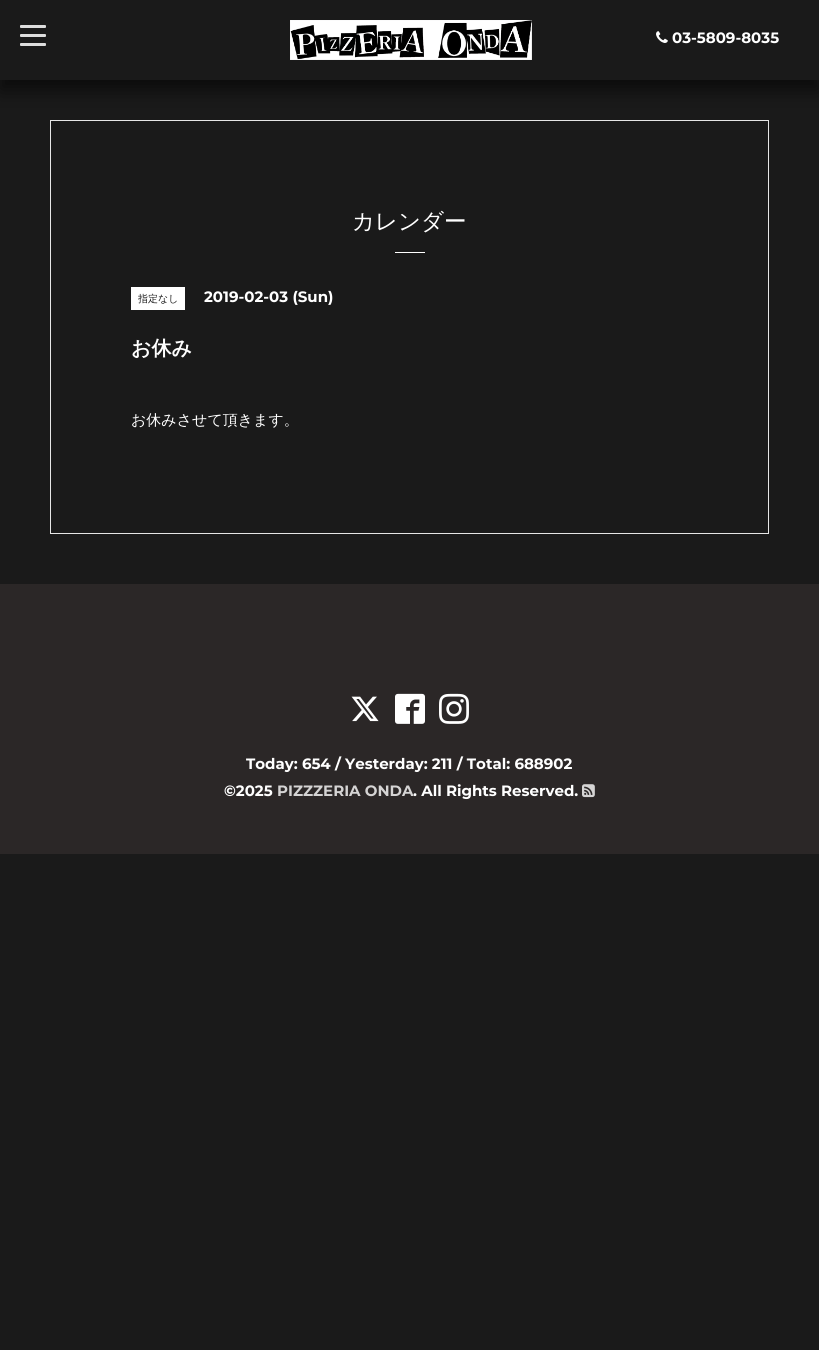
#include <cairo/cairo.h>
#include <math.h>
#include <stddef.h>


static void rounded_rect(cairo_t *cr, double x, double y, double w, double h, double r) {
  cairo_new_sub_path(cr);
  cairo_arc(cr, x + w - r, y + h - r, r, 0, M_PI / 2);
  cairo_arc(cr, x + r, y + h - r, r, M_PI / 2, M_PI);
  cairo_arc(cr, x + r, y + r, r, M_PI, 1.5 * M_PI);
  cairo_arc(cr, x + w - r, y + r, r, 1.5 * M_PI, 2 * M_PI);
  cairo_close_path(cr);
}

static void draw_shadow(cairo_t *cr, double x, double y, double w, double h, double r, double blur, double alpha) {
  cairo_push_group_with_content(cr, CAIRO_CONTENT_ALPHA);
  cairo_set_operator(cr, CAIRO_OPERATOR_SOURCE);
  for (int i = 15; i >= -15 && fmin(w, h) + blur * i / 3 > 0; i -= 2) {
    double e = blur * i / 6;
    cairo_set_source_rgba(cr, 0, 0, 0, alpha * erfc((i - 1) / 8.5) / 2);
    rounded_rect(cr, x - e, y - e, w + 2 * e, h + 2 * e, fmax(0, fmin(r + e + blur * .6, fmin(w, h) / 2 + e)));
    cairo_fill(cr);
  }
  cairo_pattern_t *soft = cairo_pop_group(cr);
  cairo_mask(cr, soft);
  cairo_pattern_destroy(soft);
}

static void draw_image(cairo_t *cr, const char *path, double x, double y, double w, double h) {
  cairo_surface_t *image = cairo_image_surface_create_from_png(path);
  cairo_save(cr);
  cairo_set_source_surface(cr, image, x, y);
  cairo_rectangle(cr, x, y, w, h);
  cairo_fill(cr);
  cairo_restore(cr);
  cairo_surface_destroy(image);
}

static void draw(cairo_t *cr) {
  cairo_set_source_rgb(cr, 26 / 255.0, 26 / 255.0, 26 / 255.0);
  cairo_paint(cr);
  cairo_rectangle(cr, 50.5, 120.5, 718, 413);
  cairo_set_source_rgb(cr, 230 / 255.0, 230 / 255.0, 230 / 255.0);
  cairo_set_line_width(cr, 1);
  cairo_stroke(cr);
  cairo_save(cr);
  cairo_rectangle(cr, 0, 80, 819, 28);
  cairo_clip(cr);
  cairo_set_source_rgb(cr, 0, 0, 0);
  draw_shadow(cr, 0, 10, 819, 80, 0, 10, 0.6);
  cairo_restore(cr);
  cairo_set_source_rgb(cr, 221 / 255.0, 221 / 255.0, 221 / 255.0);
  rounded_rect(cr, 20, 34, 26, 3, 1);
  cairo_fill(cr);
  rounded_rect(cr, 20, 25, 26, 3, 1);
  cairo_fill(cr);
  rounded_rect(cr, 20, 43, 26, 3, 1);
  cairo_fill(cr);
  draw_image(cr, "images/1.png", 290, 20, 242, 40);
  draw_image(cr, "images/2.png", 656, 31, 12, 12);
  cairo_set_source_rgb(cr, 1, 1, 1);
  cairo_rectangle(cr, 395, 252, 30, 1);
  cairo_fill(cr);
  cairo_rectangle(cr, 131, 287, 54, 23);
  cairo_fill(cr);
  cairo_set_source_rgb(cr, 43 / 255.0, 39 / 255.0, 39 / 255.0);
  cairo_rectangle(cr, 0, 584, 819, 270);
  cairo_fill(cr);
  draw_image(cr, "images/3.png", 351, 696, 28, 26);
  draw_image(cr, "images/4.png", 395, 693, 30, 31);
  draw_image(cr, "images/5.png", 439, 693, 30, 31);
  draw_image(cr, "images/6.png", 582, 784, 13, 14);
  cairo_select_font_face(cr, "Montserrat Thin", CAIRO_FONT_SLANT_NORMAL, CAIRO_FONT_WEIGHT_NORMAL);
  cairo_set_font_size(cr, 15);
  cairo_set_source_rgb(cr, 1, 1, 1);
  cairo_move_to(cr, 672, 43);
  cairo_show_text(cr, "03-5809-8035");
  cairo_select_font_face(cr, "WenQuanYi Zen Hei Medium", CAIRO_FONT_SLANT_NORMAL, CAIRO_FONT_WEIGHT_NORMAL);
  cairo_set_font_size(cr, 22.5);
  cairo_move_to(cr, 352, 229);
  cairo_show_text(cr, "カレンダー");
  cairo_set_font_size(cr, 10);
  cairo_set_source_rgb(cr, 26 / 255.0, 26 / 255.0, 26 / 255.0);
  cairo_move_to(cr, 138, 302);
  cairo_show_text(cr, "指定なし");
  cairo_select_font_face(cr, "Montserrat Thin", CAIRO_FONT_SLANT_NORMAL, CAIRO_FONT_WEIGHT_NORMAL);
  cairo_set_font_size(cr, 15);
  cairo_set_source_rgb(cr, 1, 1, 1);
  cairo_move_to(cr, 204, 302);
  cairo_show_text(cr, "2019-02-03 (Sun)");
  cairo_select_font_face(cr, "WenQuanYi Zen Hei", CAIRO_FONT_SLANT_NORMAL, CAIRO_FONT_WEIGHT_BOLD);
  cairo_set_font_size(cr, 20);
  cairo_move_to(cr, 131, 355);
  cairo_show_text(cr, "お休み");
  cairo_select_font_face(cr, "WenQuanYi Zen Hei Medium", CAIRO_FONT_SLANT_NORMAL, CAIRO_FONT_WEIGHT_NORMAL);
  cairo_set_font_size(cr, 15);
  cairo_move_to(cr, 131, 425);
  cairo_show_text(cr, "お休みさせて頂きます。");
  cairo_select_font_face(cr, "Montserrat Thin", CAIRO_FONT_SLANT_NORMAL, CAIRO_FONT_WEIGHT_NORMAL);
  cairo_move_to(cr, 246, 769);
  cairo_show_text(cr, "Today: 654 / Yesterday: 211 / Total: 688902");
  cairo_move_to(cr, 224, 796);
  cairo_show_text(cr, "©2025");
  cairo_set_source_rgb(cr, 213 / 255.0, 212 / 255.0, 212 / 255.0);
  cairo_move_to(cr, 277, 796);
  cairo_show_text(cr, "PIZZZERIA ONDA");
  cairo_set_source_rgb(cr, 1, 1, 1);
  cairo_move_to(cr, 413, 796);
  cairo_show_text(cr, ". All Rights Reserved.");
}

int main(void) {
  cairo_surface_t *surface = cairo_image_surface_create(CAIRO_FORMAT_RGB24, 819, 1350);
  cairo_t *cr = cairo_create(surface);
  cairo_font_options_t *options = cairo_font_options_create();
  cairo_font_options_set_hint_metrics(options, CAIRO_HINT_METRICS_OFF);
  cairo_font_options_set_hint_style(options, CAIRO_HINT_STYLE_NONE);
  cairo_set_font_options(cr, options);
  cairo_set_miter_limit(cr, 4);
  draw(cr);
  cairo_surface_write_to_png(surface, "out.png");
  cairo_font_options_destroy(options);
  cairo_destroy(cr);
  cairo_surface_destroy(surface);
  return 0;
}
